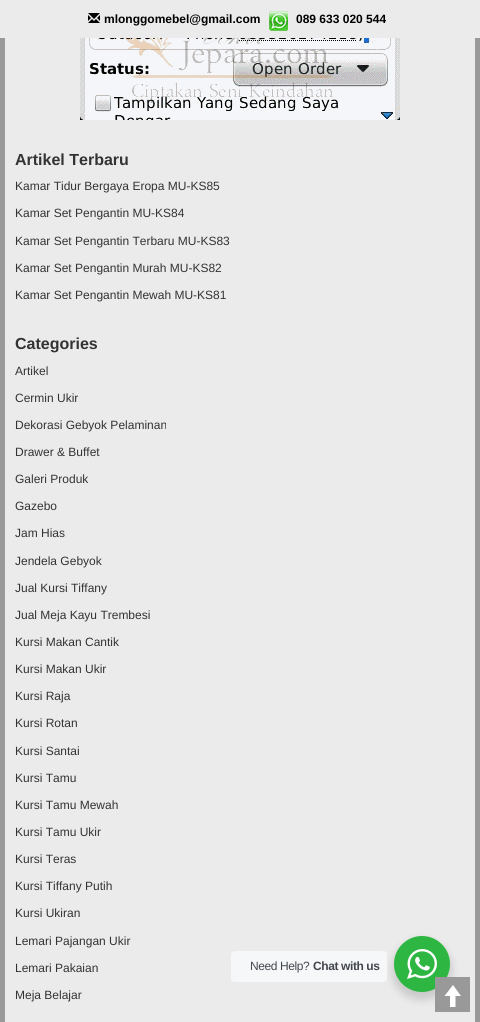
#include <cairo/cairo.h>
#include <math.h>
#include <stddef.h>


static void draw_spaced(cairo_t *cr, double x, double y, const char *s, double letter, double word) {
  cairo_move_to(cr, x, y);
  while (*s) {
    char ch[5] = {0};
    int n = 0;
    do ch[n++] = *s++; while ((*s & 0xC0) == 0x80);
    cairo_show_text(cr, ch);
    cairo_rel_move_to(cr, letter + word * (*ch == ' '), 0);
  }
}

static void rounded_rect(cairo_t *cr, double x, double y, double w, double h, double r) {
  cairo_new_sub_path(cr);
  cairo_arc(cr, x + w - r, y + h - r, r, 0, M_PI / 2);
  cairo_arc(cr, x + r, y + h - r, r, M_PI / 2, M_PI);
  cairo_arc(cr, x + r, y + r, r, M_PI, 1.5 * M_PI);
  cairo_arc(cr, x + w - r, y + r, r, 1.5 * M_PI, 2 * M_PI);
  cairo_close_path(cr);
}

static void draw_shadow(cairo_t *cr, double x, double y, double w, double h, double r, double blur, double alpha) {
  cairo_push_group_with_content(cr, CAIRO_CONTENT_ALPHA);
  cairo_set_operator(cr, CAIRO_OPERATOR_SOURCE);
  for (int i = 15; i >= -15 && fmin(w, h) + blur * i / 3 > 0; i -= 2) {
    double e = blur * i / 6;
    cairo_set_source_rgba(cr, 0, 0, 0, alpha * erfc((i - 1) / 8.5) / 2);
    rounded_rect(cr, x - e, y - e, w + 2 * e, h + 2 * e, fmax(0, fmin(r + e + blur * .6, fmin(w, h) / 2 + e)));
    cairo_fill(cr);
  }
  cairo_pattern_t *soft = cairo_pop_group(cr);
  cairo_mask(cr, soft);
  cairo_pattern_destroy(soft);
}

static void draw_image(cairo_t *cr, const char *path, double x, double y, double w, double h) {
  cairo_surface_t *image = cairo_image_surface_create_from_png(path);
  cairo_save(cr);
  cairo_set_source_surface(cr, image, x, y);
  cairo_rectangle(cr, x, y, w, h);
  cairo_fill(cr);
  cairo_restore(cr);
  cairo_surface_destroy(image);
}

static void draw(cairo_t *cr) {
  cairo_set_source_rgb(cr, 1, 1, 1);
  cairo_paint(cr);
  cairo_rectangle(cr, 2.5, -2.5, 475, 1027);
  cairo_set_source_rgb(cr, 153 / 255.0, 153 / 255.0, 153 / 255.0);
  cairo_set_line_width(cr, 5);
  cairo_stroke(cr);
  cairo_set_source_rgb(cr, 235 / 255.0, 235 / 255.0, 235 / 255.0);
  cairo_rectangle(cr, 0, 0, 480, 38);
  cairo_fill(cr);
  draw_image(cr, "images/1.png", 88, 13, 12, 10);
  draw_image(cr, "images/2.png", 269, 11, 19, 20);
  cairo_rectangle(cr, 5, 38, 470, 984);
  cairo_fill(cr);
  draw_image(cr, "images/3.png", 80, 38, 320, 82);
  cairo_set_source_rgb(cr, 0, 0, 0);
  draw_shadow(cr, 392, 940, 60, 60, 30, 4, 0.14);
  cairo_set_source_rgb(cr, 245 / 255.0, 247 / 255.0, 249 / 255.0);
  rounded_rect(cr, 231, 951, 156, 31, 4);
  cairo_fill(cr);
  cairo_set_source_rgb(cr, 45 / 255.0, 183 / 255.0, 66 / 255.0);
  cairo_arc(cr, 422, 964, 28, 0, 2 * M_PI);
  cairo_fill(cr);
  draw_image(cr, "images/4.png", 407, 949, 30, 30);
  cairo_set_source_rgb(cr, 153 / 255.0, 153 / 255.0, 153 / 255.0);
  cairo_rectangle(cr, 435, 977, 35, 35);
  cairo_fill(cr);
  cairo_set_source_rgb(cr, 1, 1, 1);
  cairo_new_path(cr);
  cairo_move_to(cr, 461, 996);
  cairo_line_to(cr, 455.5, 996);
  cairo_line_to(cr, 455.5, 1007);
  cairo_line_to(cr, 450, 1007);
  cairo_line_to(cr, 450, 996);
  cairo_line_to(cr, 444.5, 996);
  cairo_line_to(cr, 453, 985);
  cairo_close_path(cr);
  cairo_fill(cr);
  cairo_select_font_face(cr, "Liberation Sans", CAIRO_FONT_SLANT_NORMAL, CAIRO_FONT_WEIGHT_BOLD);
  cairo_set_font_size(cr, 12);
  cairo_set_source_rgb(cr, 0, 0, 0);
  cairo_move_to(cr, 104, 23);
  cairo_show_text(cr, "mlonggomebel@gmail.com");
  cairo_move_to(cr, 296, 23);
  cairo_show_text(cr, "089 633 020 544");
  cairo_set_font_size(cr, 16);
  cairo_set_source_rgb(cr, 51 / 255.0, 51 / 255.0, 51 / 255.0);
  cairo_move_to(cr, 15, 165);
  cairo_show_text(cr, "Artikel Terbaru");
  cairo_select_font_face(cr, "Liberation Sans", CAIRO_FONT_SLANT_NORMAL, CAIRO_FONT_WEIGHT_NORMAL);
  cairo_set_font_size(cr, 12);
  cairo_move_to(cr, 15, 190);
  cairo_show_text(cr, "Kamar Tidur Bergaya Eropa MU-KS85");
  cairo_move_to(cr, 15, 217);
  cairo_show_text(cr, "Kamar Set Pengantin MU-KS84");
  cairo_move_to(cr, 15, 245);
  cairo_show_text(cr, "Kamar Set Pengantin Terbaru MU-KS83");
  cairo_move_to(cr, 15, 272);
  cairo_show_text(cr, "Kamar Set Pengantin Murah MU-KS82");
  cairo_move_to(cr, 15, 299);
  cairo_show_text(cr, "Kamar Set Pengantin Mewah MU-KS81");
  cairo_select_font_face(cr, "Liberation Sans", CAIRO_FONT_SLANT_NORMAL, CAIRO_FONT_WEIGHT_BOLD);
  cairo_set_font_size(cr, 16);
  cairo_move_to(cr, 15, 349);
  cairo_show_text(cr, "Categories");
  cairo_select_font_face(cr, "Liberation Sans", CAIRO_FONT_SLANT_NORMAL, CAIRO_FONT_WEIGHT_NORMAL);
  cairo_set_font_size(cr, 12);
  cairo_move_to(cr, 15, 375);
  cairo_show_text(cr, "Artikel");
  cairo_move_to(cr, 15, 402);
  cairo_show_text(cr, "Cermin Ukir");
  cairo_move_to(cr, 15, 429);
  cairo_show_text(cr, "Dekorasi Gebyok Pelaminan");
  cairo_move_to(cr, 15, 456);
  cairo_show_text(cr, "Drawer & Buffet");
  cairo_move_to(cr, 15, 483);
  cairo_show_text(cr, "Galeri Produk");
  cairo_move_to(cr, 15, 510);
  cairo_show_text(cr, "Gazebo");
  cairo_move_to(cr, 15, 537);
  cairo_show_text(cr, "Jam Hias");
  cairo_move_to(cr, 15, 565);
  cairo_show_text(cr, "Jendela Gebyok");
  cairo_move_to(cr, 15, 592);
  cairo_show_text(cr, "Jual Kursi Tiffany");
  cairo_move_to(cr, 15, 619);
  cairo_show_text(cr, "Jual Meja Kayu Trembesi");
  cairo_move_to(cr, 15, 646);
  cairo_show_text(cr, "Kursi Makan Cantik");
  cairo_move_to(cr, 15, 673);
  cairo_show_text(cr, "Kursi Makan Ukir");
  cairo_move_to(cr, 15, 700);
  cairo_show_text(cr, "Kursi Raja");
  cairo_move_to(cr, 15, 727);
  cairo_show_text(cr, "Kursi Rotan");
  cairo_move_to(cr, 15, 755);
  cairo_show_text(cr, "Kursi Santai");
  cairo_move_to(cr, 15, 782);
  cairo_show_text(cr, "Kursi Tamu");
  cairo_move_to(cr, 15, 809);
  cairo_show_text(cr, "Kursi Tamu Mewah");
  cairo_move_to(cr, 15, 836);
  cairo_show_text(cr, "Kursi Tamu Ukir");
  cairo_move_to(cr, 15, 863);
  cairo_show_text(cr, "Kursi Teras");
  cairo_move_to(cr, 15, 890);
  cairo_show_text(cr, "Kursi Tiffany Putih");
  cairo_move_to(cr, 15, 917);
  cairo_show_text(cr, "Kursi Ukiran");
  cairo_move_to(cr, 15, 945);
  cairo_show_text(cr, "Lemari Pajangan Ukir");
  cairo_move_to(cr, 15, 972);
  cairo_show_text(cr, "Lemari Pakaian");
  cairo_move_to(cr, 15, 999);
  cairo_show_text(cr, "Meja Belajar");
  cairo_set_source_rgb(cr, 67 / 255.0, 71 / 255.0, 78 / 255.0);
  draw_spaced(cr, 250, 970, "Need Help?", -0.4, 0);
  cairo_select_font_face(cr, "Liberation Sans", CAIRO_FONT_SLANT_NORMAL, CAIRO_FONT_WEIGHT_BOLD);
  draw_spaced(cr, 313, 970, "Chat with us", -0.4, 0);
}

int main(void) {
  cairo_surface_t *surface = cairo_image_surface_create(CAIRO_FORMAT_RGB24, 480, 1022);
  cairo_t *cr = cairo_create(surface);
  cairo_font_options_t *options = cairo_font_options_create();
  cairo_font_options_set_hint_metrics(options, CAIRO_HINT_METRICS_OFF);
  cairo_font_options_set_hint_style(options, CAIRO_HINT_STYLE_NONE);
  cairo_set_font_options(cr, options);
  cairo_set_miter_limit(cr, 4);
  draw(cr);
  cairo_surface_write_to_png(surface, "out.png");
  cairo_font_options_destroy(options);
  cairo_destroy(cr);
  cairo_surface_destroy(surface);
  return 0;
}
